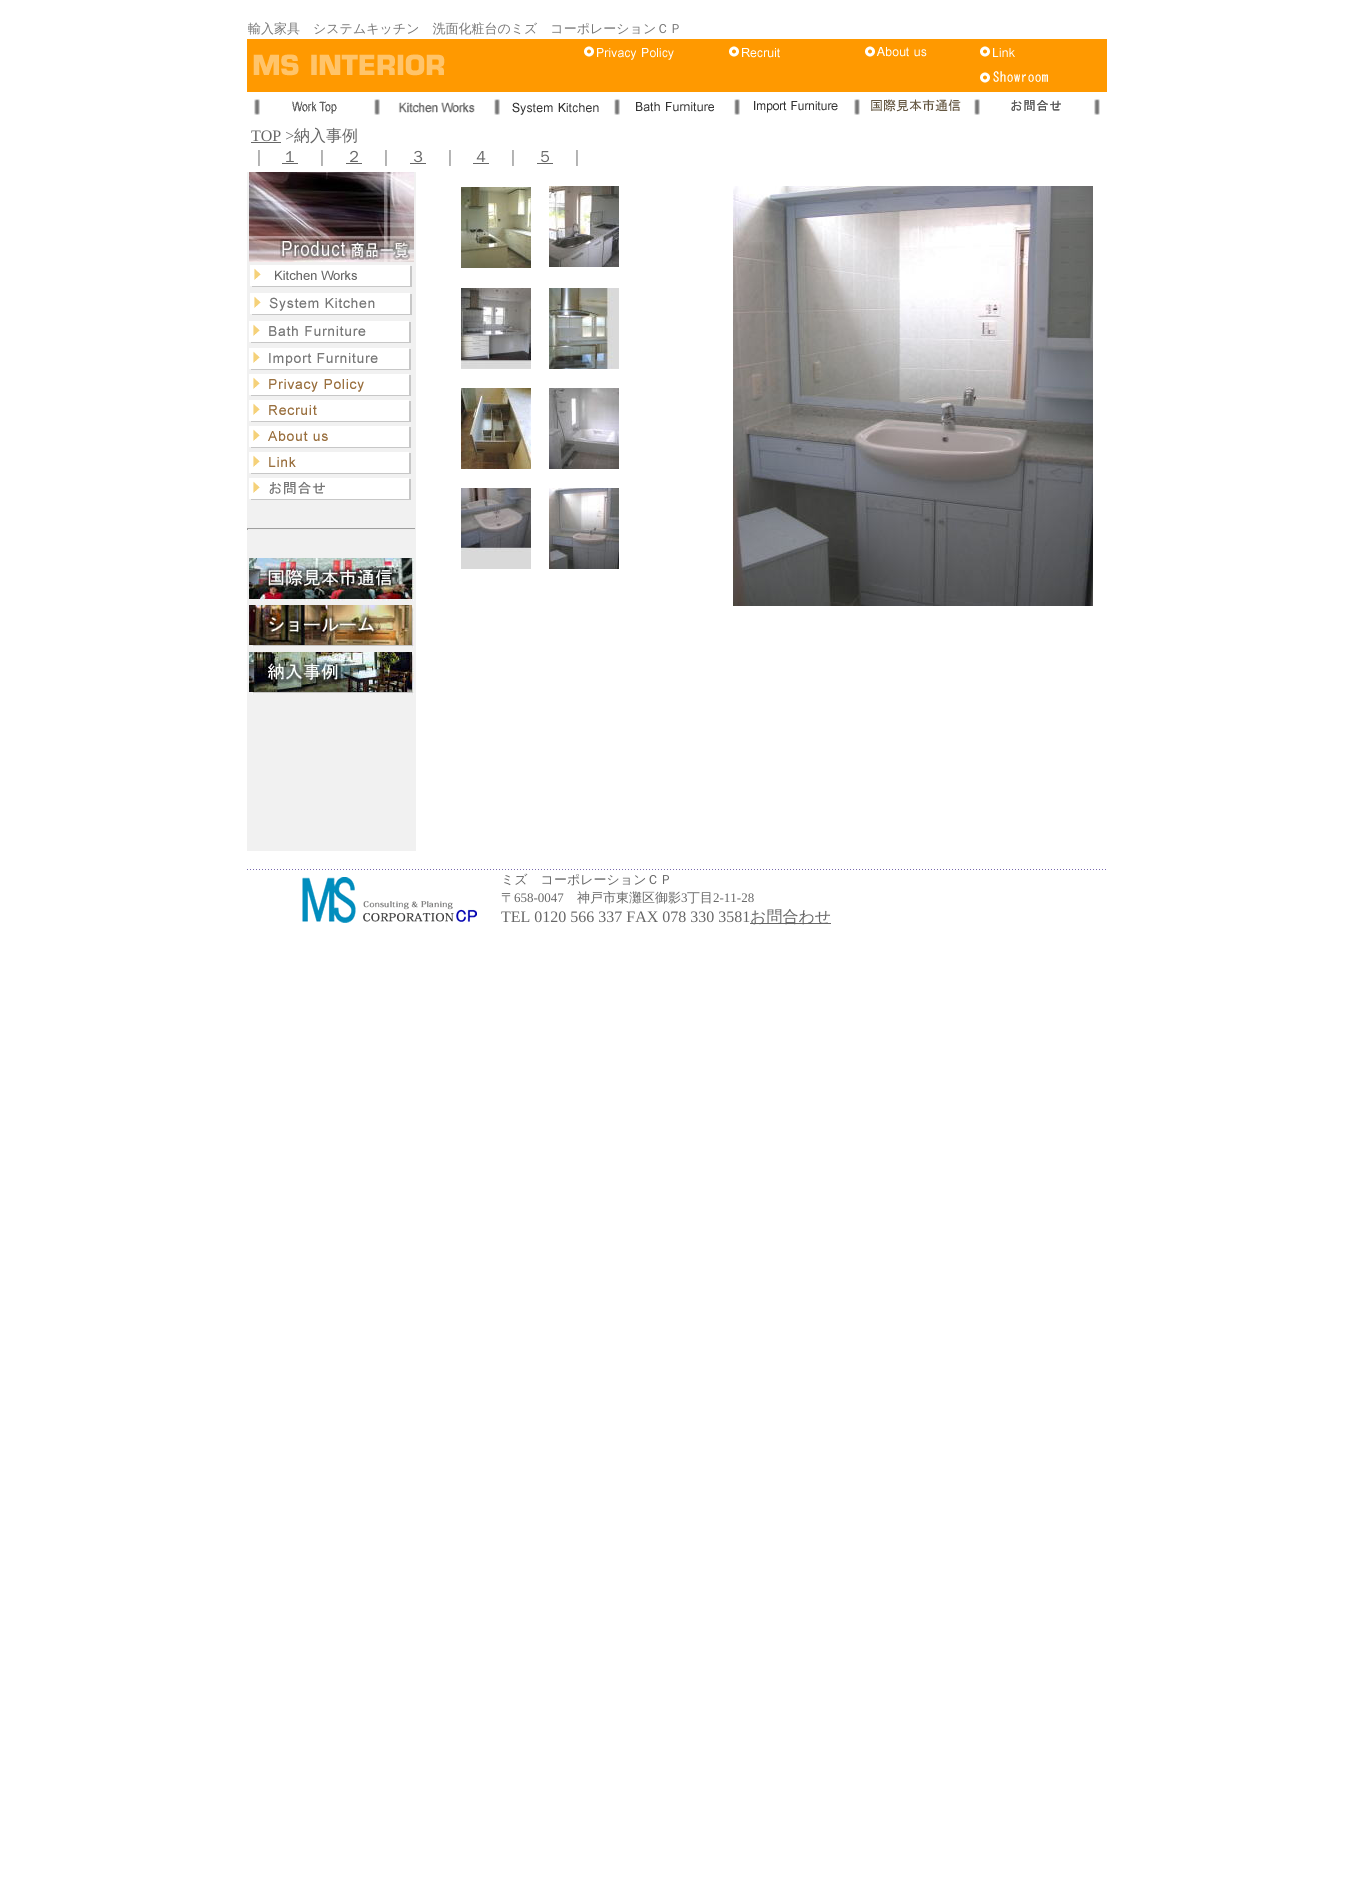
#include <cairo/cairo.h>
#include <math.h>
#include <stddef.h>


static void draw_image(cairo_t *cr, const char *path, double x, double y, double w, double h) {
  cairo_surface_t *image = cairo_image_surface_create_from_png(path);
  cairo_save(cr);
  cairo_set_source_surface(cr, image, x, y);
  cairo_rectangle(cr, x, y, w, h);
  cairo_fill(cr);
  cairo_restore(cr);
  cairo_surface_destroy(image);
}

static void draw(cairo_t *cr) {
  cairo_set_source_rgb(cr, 1, 1, 1);
  cairo_paint(cr);
  cairo_set_source_rgb(cr, 1, 153 / 255.0, 0);
  cairo_rectangle(cr, 247, 39, 313, 53);
  cairo_fill(cr);
  draw_image(cr, "images/1.png", 253, 54, 192, 22);
  cairo_rectangle(cr, 560, 39, 547, 25);
  cairo_fill(cr);
  draw_image(cr, "images/2.png", 584, 46, 90, 14);
  draw_image(cr, "images/3.png", 729, 46, 51, 12);
  draw_image(cr, "images/4.png", 865, 46, 62, 11);
  draw_image(cr, "images/5.png", 980, 46, 35, 11);
  cairo_rectangle(cr, 560, 64, 547, 28);
  cairo_fill(cr);
  draw_image(cr, "images/6.png", 980, 71, 68, 12);
  draw_image(cr, "images/7.png", 254, 99, 6, 16);
  draw_image(cr, "images/8.png", 292, 101, 45, 13);
  draw_image(cr, "images/9.png", 374, 99, 6, 16);
  draw_image(cr, "images/10.png", 398, 102, 77, 11);
  draw_image(cr, "images/9.png", 494, 99, 6, 16);
  draw_image(cr, "images/11.png", 512, 102, 87, 13);
  draw_image(cr, "images/9.png", 614, 99, 6, 16);
  draw_image(cr, "images/12.png", 636, 102, 78, 10);
  draw_image(cr, "images/9.png", 734, 99, 6, 16);
  draw_image(cr, "images/13.png", 754, 101, 84, 12);
  draw_image(cr, "images/14.png", 854, 99, 6, 16);
  draw_image(cr, "images/15.png", 871, 99, 90, 13);
  draw_image(cr, "images/9.png", 974, 99, 6, 16);
  draw_image(cr, "images/16.png", 1011, 100, 50, 11);
  draw_image(cr, "images/14.png", 1094, 99, 6, 16);
  cairo_set_source_rgb(cr, 102 / 255.0, 102 / 255.0, 102 / 255.0);
  cairo_rectangle(cr, 251, 142, 30, 1);
  cairo_fill(cr);
  cairo_rectangle(cr, 282, 163, 16, 1);
  cairo_fill(cr);
  cairo_rectangle(cr, 346, 163, 16, 1);
  cairo_fill(cr);
  cairo_rectangle(cr, 410, 163, 16, 1);
  cairo_fill(cr);
  cairo_rectangle(cr, 473, 163, 16, 1);
  cairo_fill(cr);
  cairo_rectangle(cr, 537, 163, 16, 1);
  cairo_fill(cr);
  cairo_set_source_rgb(cr, 241 / 255.0, 241 / 255.0, 241 / 255.0);
  cairo_rectangle(cr, 247, 172, 169, 679);
  cairo_fill(cr);
  draw_image(cr, "images/17.png", 249, 172, 165, 90);
  draw_image(cr, "images/18.png", 250, 265, 162, 22);
  draw_image(cr, "images/19.png", 250, 293, 162, 22);
  draw_image(cr, "images/20.png", 249, 321, 162, 22);
  draw_image(cr, "images/21.png", 249, 348, 162, 22);
  draw_image(cr, "images/22.png", 249, 374, 162, 22);
  draw_image(cr, "images/23.png", 249, 400, 162, 22);
  draw_image(cr, "images/24.png", 249, 426, 162, 22);
  draw_image(cr, "images/25.png", 249, 452, 162, 22);
  draw_image(cr, "images/26.png", 249, 478, 162, 22);
  cairo_set_source_rgb(cr, 159 / 255.0, 159 / 255.0, 159 / 255.0);
  cairo_rectangle(cr, 247, 528, 169, 1);
  cairo_fill(cr);
  cairo_set_source_rgb(cr, 238 / 255.0, 238 / 255.0, 238 / 255.0);
  cairo_rectangle(cr, 415, 528, 1, 2);
  cairo_fill(cr);
  cairo_rectangle(cr, 247, 529, 169, 1);
  cairo_fill(cr);
  cairo_set_source_rgb(cr, 159 / 255.0, 159 / 255.0, 159 / 255.0);
  cairo_rectangle(cr, 247, 528, 1, 2);
  cairo_fill(cr);
  draw_image(cr, "images/27.png", 249, 558, 165, 43);
  draw_image(cr, "images/28.png", 249, 605, 165, 43);
  draw_image(cr, "images/29.png", 249, 652, 165, 43);
  draw_image(cr, "images/30.png", 461, 187, 70, 81);
  draw_image(cr, "images/31.png", 549, 186, 70, 81);
  draw_image(cr, "images/32.png", 733, 186, 360, 420);
  draw_image(cr, "images/33.png", 461, 288, 70, 81);
  draw_image(cr, "images/34.png", 549, 288, 70, 81);
  draw_image(cr, "images/35.png", 461, 388, 70, 81);
  draw_image(cr, "images/36.png", 549, 388, 70, 81);
  draw_image(cr, "images/37.png", 461, 488, 70, 81);
  draw_image(cr, "images/38.png", 549, 488, 70, 81);
  draw_image(cr, "images/39.png", 247, 869, 859, 1);
  draw_image(cr, "images/40.png", 302, 877, 175, 46);
  cairo_set_source_rgb(cr, 102 / 255.0, 102 / 255.0, 102 / 255.0);
  cairo_rectangle(cr, 750, 923, 81, 1);
  cairo_fill(cr);
  cairo_select_font_face(cr, "WenQuanYi Zen Hei Medium", CAIRO_FONT_SLANT_NORMAL, CAIRO_FONT_WEIGHT_NORMAL);
  cairo_set_font_size(cr, 13);
  cairo_set_source_rgb(cr, 119 / 255.0, 119 / 255.0, 119 / 255.0);
  cairo_move_to(cr, 248, 33);
  cairo_show_text(cr, "輸入家具　システムキッチン　洗面化粧台のミズ　コーポレーションＣＰ");
  cairo_select_font_face(cr, "Liberation Serif", CAIRO_FONT_SLANT_NORMAL, CAIRO_FONT_WEIGHT_NORMAL);
  cairo_set_font_size(cr, 16);
  cairo_set_source_rgb(cr, 102 / 255.0, 102 / 255.0, 102 / 255.0);
  cairo_move_to(cr, 251, 141);
  cairo_show_text(cr, "TOP >");
  cairo_select_font_face(cr, "WenQuanYi Zen Hei Medium", CAIRO_FONT_SLANT_NORMAL, CAIRO_FONT_WEIGHT_NORMAL);
  cairo_move_to(cr, 294, 141);
  cairo_show_text(cr, "納入事例");
  cairo_move_to(cr, 251, 162);
  cairo_show_text(cr, "｜");
  cairo_move_to(cr, 282, 162);
  cairo_show_text(cr, "１");
  cairo_move_to(cr, 314, 162);
  cairo_show_text(cr, "｜");
  cairo_move_to(cr, 346, 162);
  cairo_show_text(cr, "２");
  cairo_move_to(cr, 378, 162);
  cairo_show_text(cr, "｜");
  cairo_move_to(cr, 410, 162);
  cairo_show_text(cr, "３");
  cairo_move_to(cr, 442, 162);
  cairo_show_text(cr, "｜");
  cairo_move_to(cr, 473, 162);
  cairo_show_text(cr, "４");
  cairo_move_to(cr, 505, 162);
  cairo_show_text(cr, "｜");
  cairo_move_to(cr, 537, 162);
  cairo_show_text(cr, "５");
  cairo_move_to(cr, 569, 162);
  cairo_show_text(cr, "｜");
  cairo_set_font_size(cr, 13);
  cairo_move_to(cr, 501, 884);
  cairo_show_text(cr, "ミズ　コーポレーションＣＰ");
  cairo_move_to(cr, 501, 902);
  cairo_show_text(cr, "〒");
  cairo_select_font_face(cr, "Liberation Serif", CAIRO_FONT_SLANT_NORMAL, CAIRO_FONT_WEIGHT_NORMAL);
  cairo_move_to(cr, 514, 902);
  cairo_show_text(cr, "658-0047");
  cairo_select_font_face(cr, "WenQuanYi Zen Hei Medium", CAIRO_FONT_SLANT_NORMAL, CAIRO_FONT_WEIGHT_NORMAL);
  cairo_move_to(cr, 577, 902);
  cairo_show_text(cr, "神戸市東灘区御影");
  cairo_select_font_face(cr, "Liberation Serif", CAIRO_FONT_SLANT_NORMAL, CAIRO_FONT_WEIGHT_NORMAL);
  cairo_move_to(cr, 681, 902);
  cairo_show_text(cr, "3");
  cairo_select_font_face(cr, "WenQuanYi Zen Hei Medium", CAIRO_FONT_SLANT_NORMAL, CAIRO_FONT_WEIGHT_NORMAL);
  cairo_move_to(cr, 687, 902);
  cairo_show_text(cr, "丁目");
  cairo_select_font_face(cr, "Liberation Serif", CAIRO_FONT_SLANT_NORMAL, CAIRO_FONT_WEIGHT_NORMAL);
  cairo_move_to(cr, 713, 902);
  cairo_show_text(cr, "2-11-28");
  cairo_set_font_size(cr, 16);
  cairo_move_to(cr, 501, 922);
  cairo_show_text(cr, "TEL 0120 566 337 FAX 078 330 3581");
  cairo_select_font_face(cr, "WenQuanYi Zen Hei Medium", CAIRO_FONT_SLANT_NORMAL, CAIRO_FONT_WEIGHT_NORMAL);
  cairo_move_to(cr, 750, 922);
  cairo_show_text(cr, "お問合わせ");
}

int main(void) {
  cairo_surface_t *surface = cairo_image_surface_create(CAIRO_FORMAT_RGB24, 1353, 1891);
  cairo_t *cr = cairo_create(surface);
  cairo_font_options_t *options = cairo_font_options_create();
  cairo_font_options_set_hint_metrics(options, CAIRO_HINT_METRICS_OFF);
  cairo_font_options_set_hint_style(options, CAIRO_HINT_STYLE_NONE);
  cairo_set_font_options(cr, options);
  cairo_set_miter_limit(cr, 4);
  draw(cr);
  cairo_surface_write_to_png(surface, "out.png");
  cairo_font_options_destroy(options);
  cairo_destroy(cr);
  cairo_surface_destroy(surface);
  return 0;
}
